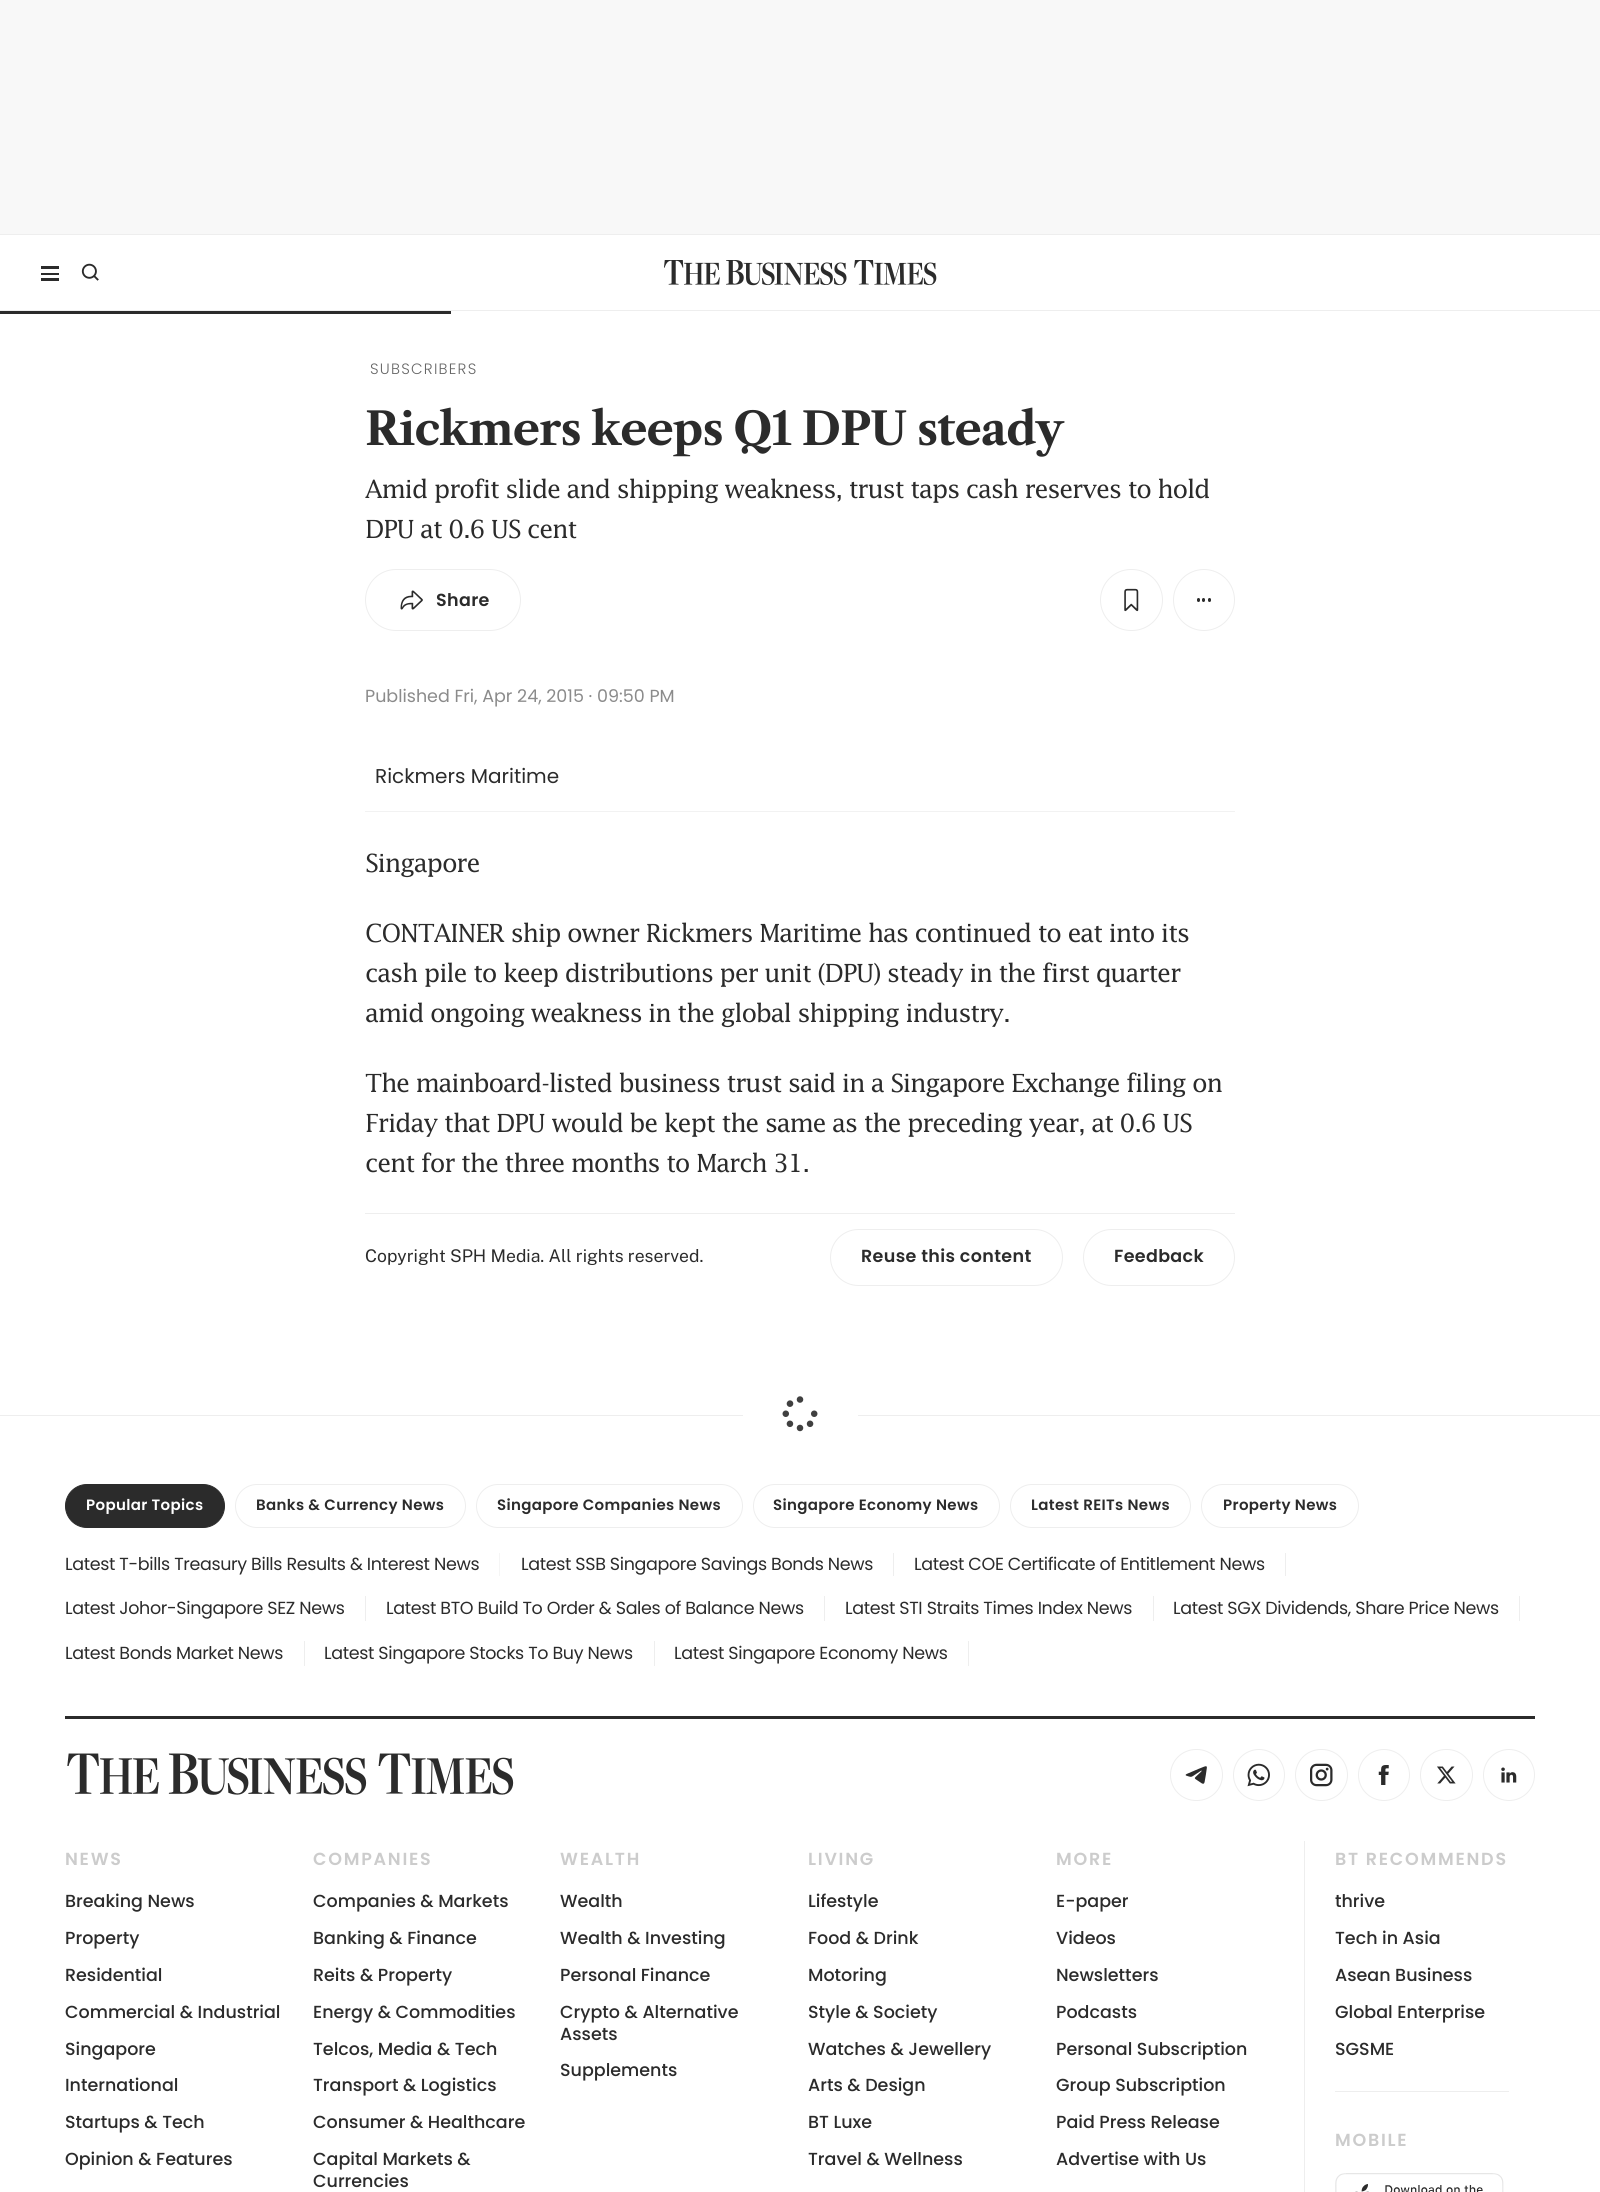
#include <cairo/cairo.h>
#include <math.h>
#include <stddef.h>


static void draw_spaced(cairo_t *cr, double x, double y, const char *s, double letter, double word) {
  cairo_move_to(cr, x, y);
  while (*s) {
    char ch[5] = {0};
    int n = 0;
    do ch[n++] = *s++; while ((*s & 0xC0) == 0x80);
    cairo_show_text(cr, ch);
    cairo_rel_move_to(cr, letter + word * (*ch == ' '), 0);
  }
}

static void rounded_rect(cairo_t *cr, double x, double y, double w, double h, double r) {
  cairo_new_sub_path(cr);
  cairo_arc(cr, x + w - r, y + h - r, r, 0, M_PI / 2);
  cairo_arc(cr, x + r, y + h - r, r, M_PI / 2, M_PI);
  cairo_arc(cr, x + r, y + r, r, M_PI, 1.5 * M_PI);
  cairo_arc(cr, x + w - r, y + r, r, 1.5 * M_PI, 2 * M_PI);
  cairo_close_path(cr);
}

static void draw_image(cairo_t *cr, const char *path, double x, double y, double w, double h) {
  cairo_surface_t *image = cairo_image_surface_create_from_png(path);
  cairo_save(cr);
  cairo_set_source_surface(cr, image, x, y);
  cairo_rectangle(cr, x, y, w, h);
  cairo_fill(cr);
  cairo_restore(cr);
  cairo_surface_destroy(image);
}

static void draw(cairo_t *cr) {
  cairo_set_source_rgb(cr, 1, 1, 1);
  cairo_paint(cr);
  cairo_set_source_rgb(cr, 248 / 255.0, 248 / 255.0, 248 / 255.0);
  cairo_rectangle(cr, 0, 0, 1600, 234);
  cairo_fill(cr);
  cairo_set_source_rgb(cr, 238 / 255.0, 238 / 255.0, 238 / 255.0);
  cairo_rectangle(cr, 0, 234, 1600, 1);
  cairo_fill(cr);
  cairo_rectangle(cr, 0, 310, 1600, 1);
  cairo_fill(cr);
  cairo_set_source_rgb(cr, 43 / 255.0, 43 / 255.0, 43 / 255.0);
  cairo_rectangle(cr, 41, 266, 18, 3);
  cairo_fill(cr);
  cairo_rectangle(cr, 41, 273, 18, 2);
  cairo_fill(cr);
  cairo_rectangle(cr, 41, 278, 18, 3);
  cairo_fill(cr);
  draw_image(cr, "images/1.png", 81, 263, 18, 18);
  draw_image(cr, "images/2.png", 664, 260, 273, 26);
  cairo_rectangle(cr, 0, 311, 451, 3);
  cairo_fill(cr);
  rounded_rect(cr, 365.5, 569.5, 155, 61, 30.5);
  cairo_set_source_rgb(cr, 238 / 255.0, 238 / 255.0, 238 / 255.0);
  cairo_set_line_width(cr, 1);
  cairo_stroke(cr);
  draw_image(cr, "images/3.png", 400, 590, 23, 20);
  rounded_rect(cr, 1100.5, 569.5, 62, 61, 30.5);
  cairo_stroke(cr);
  draw_image(cr, "images/4.png", 1124, 588, 15, 24);
  cairo_arc(cr, 1204, 600, 30.5, 0, 2 * M_PI);
  cairo_stroke(cr);
  cairo_set_source_rgb(cr, 43 / 255.0, 43 / 255.0, 43 / 255.0);
  rounded_rect(cr, 1197, 598, 3, 4, 1.5);
  cairo_fill(cr);
  rounded_rect(cr, 1202, 598, 3, 4, 1.5);
  cairo_fill(cr);
  rounded_rect(cr, 1208, 598, 3, 4, 1.5);
  cairo_fill(cr);
  cairo_set_source_rgb(cr, 242 / 255.0, 242 / 255.0, 242 / 255.0);
  cairo_rectangle(cr, 365, 811, 870, 1);
  cairo_fill(cr);
  cairo_set_source_rgb(cr, 238 / 255.0, 238 / 255.0, 238 / 255.0);
  cairo_rectangle(cr, 365, 1213, 870, 1);
  cairo_fill(cr);
  rounded_rect(cr, 830.5, 1229.5, 232, 56, 28);
  cairo_stroke(cr);
  rounded_rect(cr, 1083.5, 1229.5, 151, 56, 28);
  cairo_stroke(cr);
  cairo_rectangle(cr, 0, 1415, 1600, 1);
  cairo_fill(cr);
  cairo_set_source_rgb(cr, 1, 1, 1);
  cairo_rectangle(cr, 743, 1415, 115, 1);
  cairo_fill(cr);
  draw_image(cr, "images/5.png", 782, 1396, 36, 36);
  cairo_set_source_rgb(cr, 43 / 255.0, 43 / 255.0, 43 / 255.0);
  rounded_rect(cr, 65.5, 1484.5, 159, 43, 21.5);
  cairo_fill_preserve(cr);
  cairo_stroke(cr);
  rounded_rect(cr, 235.5, 1484.5, 230, 43, 21.5);
  cairo_set_source_rgb(cr, 238 / 255.0, 238 / 255.0, 238 / 255.0);
  cairo_stroke(cr);
  rounded_rect(cr, 476.5, 1484.5, 266, 43, 21.5);
  cairo_stroke(cr);
  rounded_rect(cr, 753.5, 1484.5, 246, 43, 21.5);
  cairo_stroke(cr);
  rounded_rect(cr, 1010.5, 1484.5, 180, 43, 21.5);
  cairo_stroke(cr);
  rounded_rect(cr, 1201.5, 1484.5, 157, 43, 21.5);
  cairo_stroke(cr);
  cairo_set_source_rgb(cr, 245 / 255.0, 245 / 255.0, 245 / 255.0);
  cairo_rectangle(cr, 499, 1553, 1, 23);
  cairo_fill(cr);
  cairo_set_source_rgb(cr, 238 / 255.0, 238 / 255.0, 238 / 255.0);
  cairo_rectangle(cr, 893, 1553, 1, 23);
  cairo_fill(cr);
  cairo_rectangle(cr, 1285, 1553, 1, 23);
  cairo_fill(cr);
  cairo_rectangle(cr, 365, 1596, 1, 25);
  cairo_fill(cr);
  cairo_rectangle(cr, 824, 1596, 1, 25);
  cairo_fill(cr);
  cairo_rectangle(cr, 1153, 1596, 1, 25);
  cairo_fill(cr);
  cairo_rectangle(cr, 1519, 1596, 1, 25);
  cairo_fill(cr);
  cairo_rectangle(cr, 304, 1641, 1, 25);
  cairo_fill(cr);
  cairo_rectangle(cr, 654, 1641, 1, 25);
  cairo_fill(cr);
  cairo_rectangle(cr, 968, 1641, 1, 25);
  cairo_fill(cr);
  cairo_set_source_rgb(cr, 43 / 255.0, 43 / 255.0, 43 / 255.0);
  cairo_rectangle(cr, 65, 1716, 1470, 3);
  cairo_fill(cr);
  draw_image(cr, "images/6.png", 67, 1753, 447, 42);
  rounded_rect(cr, 1170.5, 1749.5, 52, 51, 25.5);
  cairo_set_source_rgb(cr, 238 / 255.0, 238 / 255.0, 238 / 255.0);
  cairo_stroke(cr);
  draw_image(cr, "images/7.png", 1185, 1766, 22, 18);
  cairo_arc(cr, 1259, 1775, 25.5, 0, 2 * M_PI);
  cairo_stroke(cr);
  draw_image(cr, "images/8.png", 1247, 1763, 23, 24);
  rounded_rect(cr, 1295.5, 1749.5, 52, 51, 25.5);
  cairo_stroke(cr);
  draw_image(cr, "images/9.png", 1310, 1763, 23, 24);
  cairo_arc(cr, 1384, 1775, 25.5, 0, 2 * M_PI);
  cairo_stroke(cr);
  draw_image(cr, "images/10.png", 1378, 1765, 11, 20);
  rounded_rect(cr, 1420.5, 1749.5, 52, 51, 25.5);
  cairo_stroke(cr);
  draw_image(cr, "images/11.png", 1437, 1766, 19, 18);
  cairo_arc(cr, 1509, 1775, 25.5, 0, 2 * M_PI);
  cairo_stroke(cr);
  draw_image(cr, "images/12.png", 1501, 1767, 16, 16);
  cairo_rectangle(cr, 1304, 1841, 1, 351);
  cairo_fill(cr);
  cairo_rectangle(cr, 1335, 2091, 174, 1);
  cairo_fill(cr);
  draw_image(cr, "images/13.png", 1335, 2173, 169, 19);
  cairo_select_font_face(cr, "Poppins Light", CAIRO_FONT_SLANT_NORMAL, CAIRO_FONT_WEIGHT_NORMAL);
  cairo_set_font_size(cr, 15);
  cairo_set_source_rgb(cr, 102 / 255.0, 102 / 255.0, 102 / 255.0);
  draw_spaced(cr, 370, 374, "SUBSCRIBERS", 1.25, 0);
  cairo_select_font_face(cr, "Libre Caslon Text", CAIRO_FONT_SLANT_NORMAL, CAIRO_FONT_WEIGHT_BOLD);
  cairo_set_font_size(cr, 45);
  cairo_set_source_rgb(cr, 43 / 255.0, 43 / 255.0, 43 / 255.0);
  draw_spaced(cr, 365, 445, "Rickmers keeps Q1 DPU steady", -0.9, 0);
  cairo_select_font_face(cr, "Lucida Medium", CAIRO_FONT_SLANT_NORMAL, CAIRO_FONT_WEIGHT_NORMAL);
  cairo_set_font_size(cr, 25);
  draw_spaced(cr, 365, 498, "Amid profit slide and shipping weakness, trust taps cash reserves to hold", -1.25, 0);
  draw_spaced(cr, 365, 538, "DPU at 0.6 US cent", -1.25, 0);
  cairo_select_font_face(cr, "Poppins SemiBold", CAIRO_FONT_SLANT_NORMAL, CAIRO_FONT_WEIGHT_NORMAL);
  cairo_set_font_size(cr, 17.5);
  draw_spaced(cr, 436, 606, "Share", 0.35, 0);
  cairo_select_font_face(cr, "Poppins", CAIRO_FONT_SLANT_NORMAL, CAIRO_FONT_WEIGHT_NORMAL);
  cairo_set_source_rgb(cr, 139 / 255.0, 139 / 255.0, 139 / 255.0);
  cairo_move_to(cr, 365, 702);
  cairo_show_text(cr, "Published Fri, Apr 24, 2015 · 09:50 PM");
  cairo_set_font_size(cr, 20);
  cairo_set_source_rgb(cr, 43 / 255.0, 43 / 255.0, 43 / 255.0);
  cairo_move_to(cr, 375, 783);
  cairo_show_text(cr, "Rickmers Maritime");
  cairo_select_font_face(cr, "Lucida Medium", CAIRO_FONT_SLANT_NORMAL, CAIRO_FONT_WEIGHT_NORMAL);
  cairo_set_font_size(cr, 25);
  draw_spaced(cr, 365, 872, "Singapore", -1.25, 0);
  draw_spaced(cr, 365, 942, "CONTAINER ship owner Rickmers Maritime has continued to eat into its", -1.25, 0);
  draw_spaced(cr, 365, 982, "cash pile to keep distributions per unit (DPU) steady in the first quarter", -1.25, 0);
  draw_spaced(cr, 365, 1022, "amid ongoing weakness in the global shipping industry.", -1.25, 0);
  draw_spaced(cr, 365, 1092, "The mainboard-listed business trust said in a Singapore Exchange filing on", -1.25, 0);
  draw_spaced(cr, 365, 1132, "Friday that DPU would be kept the same as the preceding year, at 0.6 US", -1.25, 0);
  draw_spaced(cr, 365, 1172, "cent for the three months to March 31.", -1.25, 0);
  cairo_select_font_face(cr, "Public Sans", CAIRO_FONT_SLANT_NORMAL, CAIRO_FONT_WEIGHT_NORMAL);
  cairo_set_font_size(cr, 17.5);
  cairo_move_to(cr, 365, 1262);
  cairo_show_text(cr, "Copyright SPH Media. All rights reserved.");
  cairo_select_font_face(cr, "Poppins SemiBold", CAIRO_FONT_SLANT_NORMAL, CAIRO_FONT_WEIGHT_NORMAL);
  draw_spaced(cr, 861, 1262, "Reuse this content", 0.35, 0);
  draw_spaced(cr, 1114, 1262, "Feedback", 0.35, 0);
  cairo_set_font_size(cr, 15);
  cairo_set_source_rgb(cr, 1, 1, 1);
  draw_spaced(cr, 86, 1510, "Popular Topics", 0.35, 0);
  cairo_set_source_rgb(cr, 43 / 255.0, 43 / 255.0, 43 / 255.0);
  draw_spaced(cr, 256, 1510, "Banks & Currency News", 0.35, 0);
  draw_spaced(cr, 497, 1510, "Singapore Companies News", 0.35, 0);
  draw_spaced(cr, 773, 1510, "Singapore Economy News", 0.35, 0);
  draw_spaced(cr, 1031, 1510, "Latest REITs News", 0.35, 0);
  draw_spaced(cr, 1223, 1510, "Property News", 0.35, 0);
  cairo_select_font_face(cr, "Poppins", CAIRO_FONT_SLANT_NORMAL, CAIRO_FONT_WEIGHT_NORMAL);
  cairo_set_font_size(cr, 17.5);
  draw_spaced(cr, 65, 1570, "Latest T-bills Treasury Bills Results & Interest News", -0.35, 0);
  draw_spaced(cr, 521, 1570, "Latest SSB Singapore Savings Bonds News", -0.35, 0);
  draw_spaced(cr, 914, 1570, "Latest COE Certificate of Entitlement News", -0.35, 0);
  draw_spaced(cr, 65, 1614, "Latest Johor-Singapore SEZ News", -0.35, 0);
  draw_spaced(cr, 386, 1614, "Latest BTO Build To Order & Sales of Balance News", -0.35, 0);
  draw_spaced(cr, 845, 1614, "Latest STI Straits Times Index News", -0.35, 0);
  draw_spaced(cr, 1173, 1614, "Latest SGX Dividends, Share Price News", -0.35, 0);
  draw_spaced(cr, 65, 1659, "Latest Bonds Market News", -0.35, 0);
  draw_spaced(cr, 324, 1659, "Latest Singapore Stocks To Buy News", -0.35, 0);
  draw_spaced(cr, 674, 1659, "Latest Singapore Economy News", -0.35, 0);
  cairo_select_font_face(cr, "Poppins SemiBold", CAIRO_FONT_SLANT_NORMAL, CAIRO_FONT_WEIGHT_NORMAL);
  cairo_set_source_rgb(cr, 204 / 255.0, 204 / 255.0, 204 / 255.0);
  draw_spaced(cr, 65, 1865, "NEWS", 1.75, 0);
  cairo_select_font_face(cr, "Poppins Medium", CAIRO_FONT_SLANT_NORMAL, CAIRO_FONT_WEIGHT_NORMAL);
  cairo_set_source_rgb(cr, 43 / 255.0, 43 / 255.0, 43 / 255.0);
  cairo_move_to(cr, 65, 1907);
  cairo_show_text(cr, "Breaking News");
  cairo_move_to(cr, 65, 1944);
  cairo_show_text(cr, "Property");
  cairo_move_to(cr, 65, 1981);
  cairo_show_text(cr, "Residential");
  cairo_move_to(cr, 65, 2018);
  cairo_show_text(cr, "Commercial & Industrial");
  cairo_move_to(cr, 65, 2055);
  cairo_show_text(cr, "Singapore");
  cairo_move_to(cr, 65, 2091);
  cairo_show_text(cr, "International");
  cairo_move_to(cr, 65, 2128);
  cairo_show_text(cr, "Startups & Tech");
  cairo_move_to(cr, 65, 2165);
  cairo_show_text(cr, "Opinion & Features");
  cairo_select_font_face(cr, "Poppins SemiBold", CAIRO_FONT_SLANT_NORMAL, CAIRO_FONT_WEIGHT_NORMAL);
  cairo_set_source_rgb(cr, 204 / 255.0, 204 / 255.0, 204 / 255.0);
  draw_spaced(cr, 313, 1865, "COMPANIES", 1.75, 0);
  cairo_select_font_face(cr, "Poppins Medium", CAIRO_FONT_SLANT_NORMAL, CAIRO_FONT_WEIGHT_NORMAL);
  cairo_set_source_rgb(cr, 43 / 255.0, 43 / 255.0, 43 / 255.0);
  cairo_move_to(cr, 313, 1907);
  cairo_show_text(cr, "Companies & Markets");
  cairo_move_to(cr, 313, 1944);
  cairo_show_text(cr, "Banking & Finance");
  cairo_move_to(cr, 313, 1981);
  cairo_show_text(cr, "Reits & Property");
  cairo_move_to(cr, 313, 2018);
  cairo_show_text(cr, "Energy & Commodities");
  cairo_move_to(cr, 313, 2055);
  cairo_show_text(cr, "Telcos, Media & Tech");
  cairo_move_to(cr, 313, 2091);
  cairo_show_text(cr, "Transport & Logistics");
  cairo_move_to(cr, 313, 2128);
  cairo_show_text(cr, "Consumer & Healthcare");
  cairo_move_to(cr, 313, 2165);
  cairo_show_text(cr, "Capital Markets &");
  cairo_move_to(cr, 313, 2187);
  cairo_show_text(cr, "Currencies");
  cairo_select_font_face(cr, "Poppins SemiBold", CAIRO_FONT_SLANT_NORMAL, CAIRO_FONT_WEIGHT_NORMAL);
  cairo_set_source_rgb(cr, 204 / 255.0, 204 / 255.0, 204 / 255.0);
  draw_spaced(cr, 560, 1865, "WEALTH", 1.75, 0);
  cairo_select_font_face(cr, "Poppins Medium", CAIRO_FONT_SLANT_NORMAL, CAIRO_FONT_WEIGHT_NORMAL);
  cairo_set_source_rgb(cr, 43 / 255.0, 43 / 255.0, 43 / 255.0);
  cairo_move_to(cr, 560, 1907);
  cairo_show_text(cr, "Wealth");
  cairo_move_to(cr, 560, 1944);
  cairo_show_text(cr, "Wealth & Investing");
  cairo_move_to(cr, 560, 1981);
  cairo_show_text(cr, "Personal Finance");
  cairo_move_to(cr, 560, 2018);
  cairo_show_text(cr, "Crypto & Alternative");
  cairo_move_to(cr, 560, 2040);
  cairo_show_text(cr, "Assets");
  cairo_move_to(cr, 560, 2076);
  cairo_show_text(cr, "Supplements");
  cairo_select_font_face(cr, "Poppins SemiBold", CAIRO_FONT_SLANT_NORMAL, CAIRO_FONT_WEIGHT_NORMAL);
  cairo_set_source_rgb(cr, 204 / 255.0, 204 / 255.0, 204 / 255.0);
  draw_spaced(cr, 808, 1865, "LIVING", 1.75, 0);
  cairo_select_font_face(cr, "Poppins Medium", CAIRO_FONT_SLANT_NORMAL, CAIRO_FONT_WEIGHT_NORMAL);
  cairo_set_source_rgb(cr, 43 / 255.0, 43 / 255.0, 43 / 255.0);
  cairo_move_to(cr, 808, 1907);
  cairo_show_text(cr, "Lifestyle");
  cairo_move_to(cr, 808, 1944);
  cairo_show_text(cr, "Food & Drink");
  cairo_move_to(cr, 808, 1981);
  cairo_show_text(cr, "Motoring");
  cairo_move_to(cr, 808, 2018);
  cairo_show_text(cr, "Style & Society");
  cairo_move_to(cr, 808, 2055);
  cairo_show_text(cr, "Watches & Jewellery");
  cairo_move_to(cr, 808, 2091);
  cairo_show_text(cr, "Arts & Design");
  cairo_move_to(cr, 808, 2128);
  cairo_show_text(cr, "BT Luxe");
  cairo_move_to(cr, 808, 2165);
  cairo_show_text(cr, "Travel & Wellness");
  cairo_select_font_face(cr, "Poppins SemiBold", CAIRO_FONT_SLANT_NORMAL, CAIRO_FONT_WEIGHT_NORMAL);
  cairo_set_source_rgb(cr, 204 / 255.0, 204 / 255.0, 204 / 255.0);
  draw_spaced(cr, 1056, 1865, "MORE", 1.75, 0);
  cairo_select_font_face(cr, "Poppins Medium", CAIRO_FONT_SLANT_NORMAL, CAIRO_FONT_WEIGHT_NORMAL);
  cairo_set_source_rgb(cr, 43 / 255.0, 43 / 255.0, 43 / 255.0);
  cairo_move_to(cr, 1056, 1907);
  cairo_show_text(cr, "E-paper");
  cairo_move_to(cr, 1056, 1944);
  cairo_show_text(cr, "Videos");
  cairo_move_to(cr, 1056, 1981);
  cairo_show_text(cr, "Newsletters");
  cairo_move_to(cr, 1056, 2018);
  cairo_show_text(cr, "Podcasts");
  cairo_move_to(cr, 1056, 2055);
  cairo_show_text(cr, "Personal Subscription");
  cairo_move_to(cr, 1056, 2091);
  cairo_show_text(cr, "Group Subscription");
  cairo_move_to(cr, 1056, 2128);
  cairo_show_text(cr, "Paid Press Release");
  cairo_move_to(cr, 1056, 2165);
  cairo_show_text(cr, "Advertise with Us");
  cairo_select_font_face(cr, "Poppins SemiBold", CAIRO_FONT_SLANT_NORMAL, CAIRO_FONT_WEIGHT_NORMAL);
  cairo_set_source_rgb(cr, 204 / 255.0, 204 / 255.0, 204 / 255.0);
  draw_spaced(cr, 1335, 1865, "BT RECOMMENDS", 1.75, 0);
  cairo_select_font_face(cr, "Poppins Medium", CAIRO_FONT_SLANT_NORMAL, CAIRO_FONT_WEIGHT_NORMAL);
  cairo_set_source_rgb(cr, 43 / 255.0, 43 / 255.0, 43 / 255.0);
  cairo_move_to(cr, 1335, 1907);
  cairo_show_text(cr, "thrive");
  cairo_move_to(cr, 1335, 1944);
  cairo_show_text(cr, "Tech in Asia");
  cairo_move_to(cr, 1335, 1981);
  cairo_show_text(cr, "Asean Business");
  cairo_move_to(cr, 1335, 2018);
  cairo_show_text(cr, "Global Enterprise");
  cairo_move_to(cr, 1335, 2055);
  cairo_show_text(cr, "SGSME");
  cairo_select_font_face(cr, "Poppins SemiBold", CAIRO_FONT_SLANT_NORMAL, CAIRO_FONT_WEIGHT_NORMAL);
  cairo_set_source_rgb(cr, 204 / 255.0, 204 / 255.0, 204 / 255.0);
  draw_spaced(cr, 1335, 2146, "MOBILE", 1.75, 0);
}

int main(void) {
  cairo_surface_t *surface = cairo_image_surface_create(CAIRO_FORMAT_RGB24, 1600, 2192);
  cairo_t *cr = cairo_create(surface);
  cairo_font_options_t *options = cairo_font_options_create();
  cairo_font_options_set_hint_metrics(options, CAIRO_HINT_METRICS_OFF);
  cairo_font_options_set_hint_style(options, CAIRO_HINT_STYLE_NONE);
  cairo_set_font_options(cr, options);
  cairo_set_miter_limit(cr, 4);
  draw(cr);
  cairo_surface_write_to_png(surface, "out.png");
  cairo_font_options_destroy(options);
  cairo_destroy(cr);
  cairo_surface_destroy(surface);
  return 0;
}
